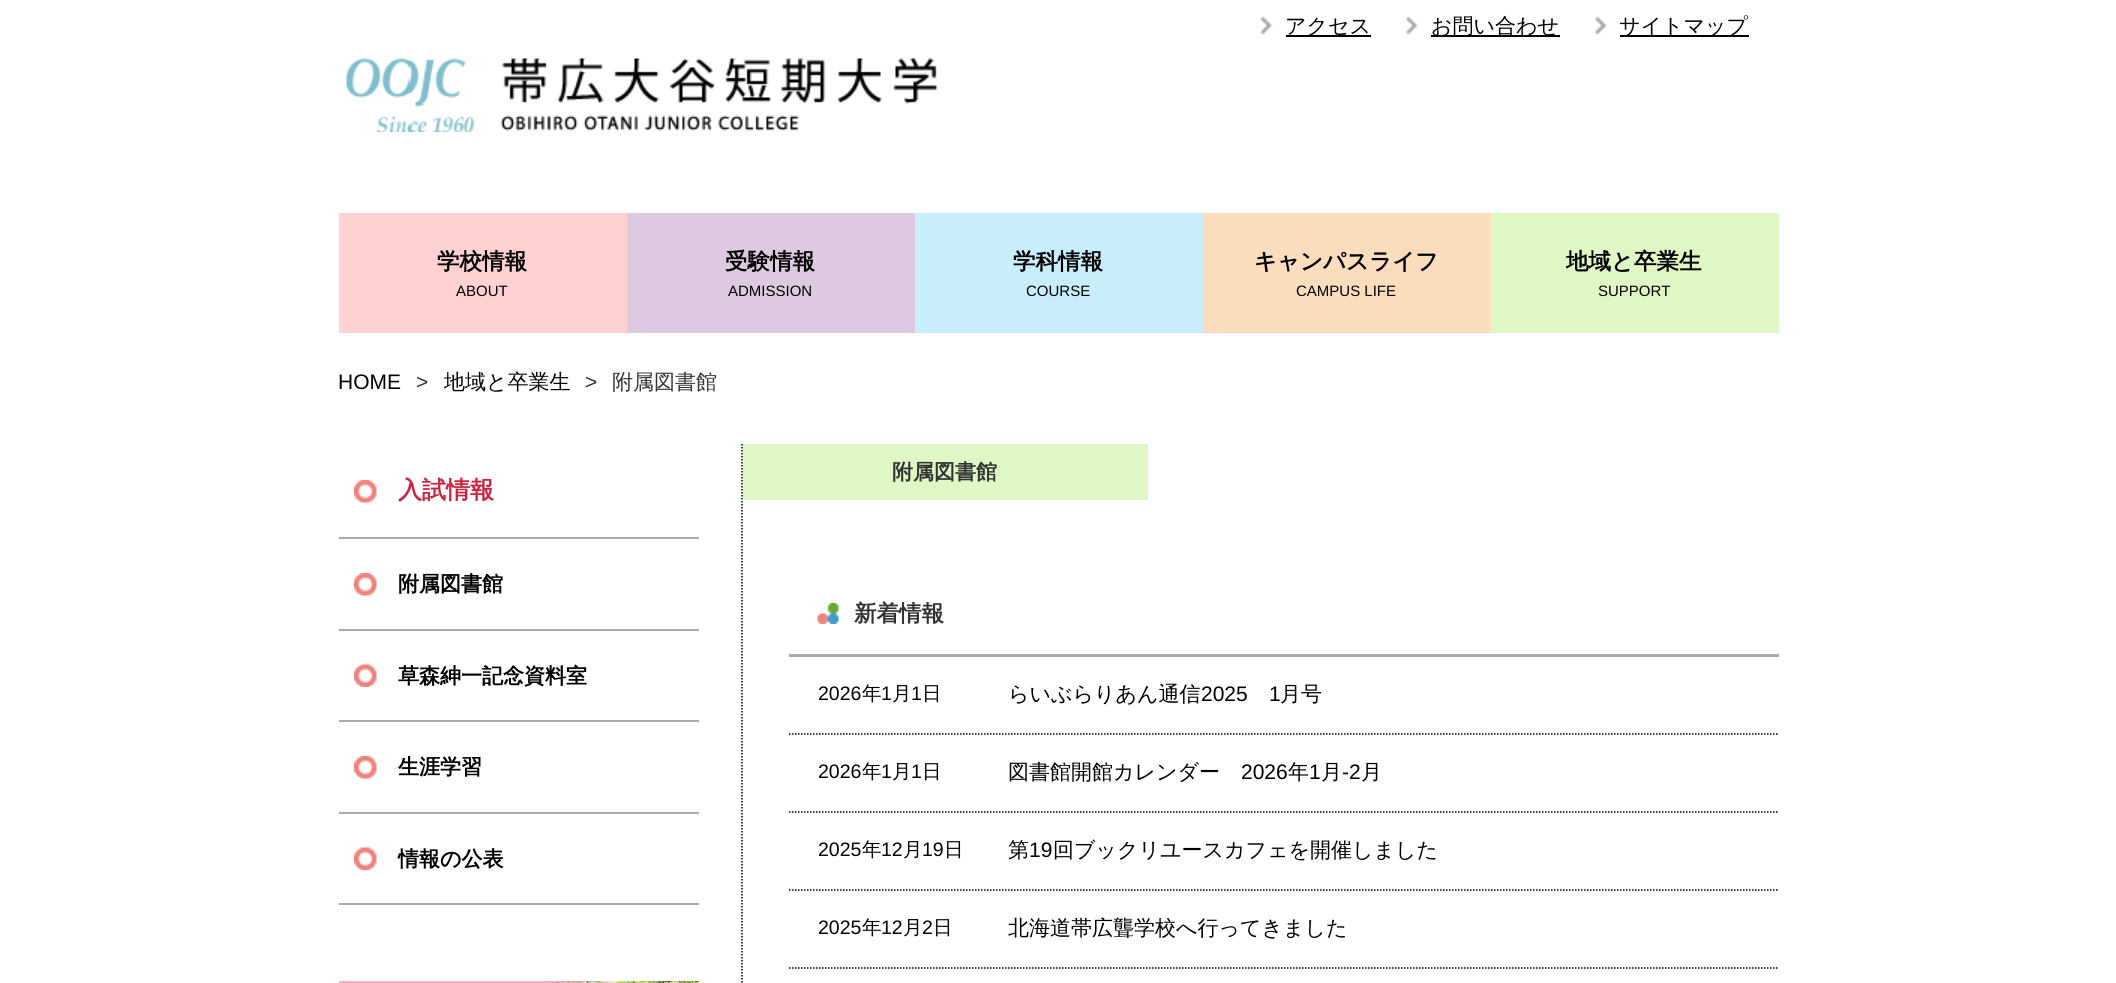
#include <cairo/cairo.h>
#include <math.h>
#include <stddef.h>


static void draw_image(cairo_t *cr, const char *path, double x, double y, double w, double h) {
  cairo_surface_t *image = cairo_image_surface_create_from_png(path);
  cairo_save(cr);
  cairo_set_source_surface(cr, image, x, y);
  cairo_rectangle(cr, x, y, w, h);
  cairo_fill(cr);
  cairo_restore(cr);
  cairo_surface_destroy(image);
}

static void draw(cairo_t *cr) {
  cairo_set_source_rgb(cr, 1, 1, 1);
  cairo_paint(cr);
  draw_image(cr, "images/1.png", 1260, 16, 13, 19);
  cairo_set_source_rgb(cr, 0, 0, 0);
  cairo_rectangle(cr, 1286, 35, 85, 2);
  cairo_fill(cr);
  draw_image(cr, "images/2.png", 1405, 16, 13, 19);
  cairo_rectangle(cr, 1431, 35, 129, 2);
  cairo_fill(cr);
  draw_image(cr, "images/2.png", 1594, 16, 13, 19);
  cairo_rectangle(cr, 1620, 35, 129, 2);
  cairo_fill(cr);
  draw_image(cr, "images/3.png", 346, 57, 592, 75);
  cairo_set_source_rgb(cr, 1, 209 / 255.0, 209 / 255.0);
  cairo_rectangle(cr, 339, 213, 288, 120);
  cairo_fill(cr);
  cairo_set_source_rgb(cr, 222 / 255.0, 202 / 255.0, 224 / 255.0);
  cairo_rectangle(cr, 627, 213, 288, 120);
  cairo_fill(cr);
  cairo_set_source_rgb(cr, 199 / 255.0, 238 / 255.0, 249 / 255.0);
  cairo_rectangle(cr, 915, 213, 288, 120);
  cairo_fill(cr);
  cairo_set_source_rgb(cr, 249 / 255.0, 221 / 255.0, 189 / 255.0);
  cairo_rectangle(cr, 1203, 213, 288, 120);
  cairo_fill(cr);
  cairo_set_source_rgb(cr, 222 / 255.0, 247 / 255.0, 196 / 255.0);
  cairo_rectangle(cr, 1491, 213, 288, 120);
  cairo_fill(cr);
  draw_image(cr, "images/4.png", 354, 480, 23, 23);
  cairo_set_source_rgb(cr, 170 / 255.0, 170 / 255.0, 170 / 255.0);
  cairo_rectangle(cr, 339, 537, 360, 2);
  cairo_fill(cr);
  draw_image(cr, "images/4.png", 354, 573, 23, 23);
  cairo_rectangle(cr, 339, 629, 360, 2);
  cairo_fill(cr);
  draw_image(cr, "images/5.png", 354, 664, 23, 23);
  cairo_rectangle(cr, 339, 720, 360, 2);
  cairo_fill(cr);
  draw_image(cr, "images/4.png", 354, 756, 23, 23);
  cairo_rectangle(cr, 339, 812, 360, 2);
  cairo_fill(cr);
  draw_image(cr, "images/5.png", 354, 847, 23, 23);
  cairo_rectangle(cr, 339, 903, 360, 2);
  cairo_fill(cr);
  draw_image(cr, "images/6.png", 339, 981, 360, 2);
  cairo_new_path(cr);
  cairo_move_to(cr, 742, 444);
  cairo_line_to(cr, 742, 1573.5);
  cairo_set_source_rgb(cr, 0, 0, 0);
  cairo_set_line_width(cr, 1.5);
  cairo_set_dash(cr, (double[]){1.5, 1.5}, 2, 0);
  cairo_stroke(cr);
  cairo_set_source_rgb(cr, 222 / 255.0, 247 / 255.0, 196 / 255.0);
  cairo_rectangle(cr, 743, 444, 405, 56);
  cairo_fill(cr);
  draw_image(cr, "images/7.png", 817, 603, 22, 21);
  cairo_set_source_rgb(cr, 170 / 255.0, 170 / 255.0, 170 / 255.0);
  cairo_rectangle(cr, 789, 654, 990, 3);
  cairo_fill(cr);
  cairo_new_path(cr);
  cairo_move_to(cr, 789, 734);
  cairo_line_to(cr, 1779, 734);
  cairo_set_source_rgb(cr, 0, 0, 0);
  cairo_stroke(cr);
  cairo_new_path(cr);
  cairo_move_to(cr, 789, 812);
  cairo_line_to(cr, 1779, 812);
  cairo_stroke(cr);
  cairo_new_path(cr);
  cairo_move_to(cr, 789, 890);
  cairo_line_to(cr, 1779, 890);
  cairo_stroke(cr);
  cairo_new_path(cr);
  cairo_move_to(cr, 789, 968);
  cairo_line_to(cr, 1779, 968);
  cairo_stroke(cr);
  cairo_select_font_face(cr, "WenQuanYi Zen Hei Medium", CAIRO_FONT_SLANT_NORMAL, CAIRO_FONT_WEIGHT_NORMAL);
  cairo_set_font_size(cr, 21);
  cairo_move_to(cr, 1285, 33);
  cairo_show_text(cr, "アクセス");
  cairo_move_to(cr, 1431, 33);
  cairo_show_text(cr, "お問い合わせ");
  cairo_move_to(cr, 1619, 33);
  cairo_show_text(cr, "サイトマップ");
  cairo_select_font_face(cr, "WenQuanYi Zen Hei", CAIRO_FONT_SLANT_NORMAL, CAIRO_FONT_WEIGHT_BOLD);
  cairo_set_font_size(cr, 22.5);
  cairo_move_to(cr, 437, 269);
  cairo_show_text(cr, "学校情報");
  cairo_select_font_face(cr, "Liberation Sans", CAIRO_FONT_SLANT_NORMAL, CAIRO_FONT_WEIGHT_NORMAL);
  cairo_set_font_size(cr, 15);
  cairo_move_to(cr, 456, 296);
  cairo_show_text(cr, "ABOUT");
  cairo_select_font_face(cr, "WenQuanYi Zen Hei", CAIRO_FONT_SLANT_NORMAL, CAIRO_FONT_WEIGHT_BOLD);
  cairo_set_font_size(cr, 22.5);
  cairo_move_to(cr, 725, 269);
  cairo_show_text(cr, "受験情報");
  cairo_select_font_face(cr, "Liberation Sans", CAIRO_FONT_SLANT_NORMAL, CAIRO_FONT_WEIGHT_NORMAL);
  cairo_set_font_size(cr, 15);
  cairo_move_to(cr, 728, 296);
  cairo_show_text(cr, "ADMISSION");
  cairo_select_font_face(cr, "WenQuanYi Zen Hei", CAIRO_FONT_SLANT_NORMAL, CAIRO_FONT_WEIGHT_BOLD);
  cairo_set_font_size(cr, 22.5);
  cairo_move_to(cr, 1013, 269);
  cairo_show_text(cr, "学科情報");
  cairo_select_font_face(cr, "Liberation Sans", CAIRO_FONT_SLANT_NORMAL, CAIRO_FONT_WEIGHT_NORMAL);
  cairo_set_font_size(cr, 15);
  cairo_move_to(cr, 1026, 296);
  cairo_show_text(cr, "COURSE");
  cairo_select_font_face(cr, "WenQuanYi Zen Hei", CAIRO_FONT_SLANT_NORMAL, CAIRO_FONT_WEIGHT_BOLD);
  cairo_set_font_size(cr, 22.5);
  cairo_move_to(cr, 1254, 269);
  cairo_show_text(cr, "キャンパスライフ");
  cairo_select_font_face(cr, "Liberation Sans", CAIRO_FONT_SLANT_NORMAL, CAIRO_FONT_WEIGHT_NORMAL);
  cairo_set_font_size(cr, 15);
  cairo_move_to(cr, 1296, 296);
  cairo_show_text(cr, "CAMPUS LIFE");
  cairo_select_font_face(cr, "WenQuanYi Zen Hei", CAIRO_FONT_SLANT_NORMAL, CAIRO_FONT_WEIGHT_BOLD);
  cairo_set_font_size(cr, 22.5);
  cairo_move_to(cr, 1566, 269);
  cairo_show_text(cr, "地域と卒業生");
  cairo_select_font_face(cr, "Liberation Sans", CAIRO_FONT_SLANT_NORMAL, CAIRO_FONT_WEIGHT_NORMAL);
  cairo_set_font_size(cr, 15);
  cairo_move_to(cr, 1598, 296);
  cairo_show_text(cr, "SUPPORT");
  cairo_set_font_size(cr, 21);
  cairo_move_to(cr, 338, 389);
  cairo_show_text(cr, "HOME");
  cairo_set_source_rgb(cr, 51 / 255.0, 51 / 255.0, 51 / 255.0);
  cairo_move_to(cr, 416, 389);
  cairo_show_text(cr, ">");
  cairo_select_font_face(cr, "WenQuanYi Zen Hei Medium", CAIRO_FONT_SLANT_NORMAL, CAIRO_FONT_WEIGHT_NORMAL);
  cairo_set_source_rgb(cr, 0, 0, 0);
  cairo_move_to(cr, 444, 389);
  cairo_show_text(cr, "地域と卒業生");
  cairo_select_font_face(cr, "Liberation Sans", CAIRO_FONT_SLANT_NORMAL, CAIRO_FONT_WEIGHT_NORMAL);
  cairo_set_source_rgb(cr, 51 / 255.0, 51 / 255.0, 51 / 255.0);
  cairo_move_to(cr, 585, 389);
  cairo_show_text(cr, ">");
  cairo_select_font_face(cr, "WenQuanYi Zen Hei Medium", CAIRO_FONT_SLANT_NORMAL, CAIRO_FONT_WEIGHT_NORMAL);
  cairo_move_to(cr, 612, 389);
  cairo_show_text(cr, "附属図書館");
  cairo_select_font_face(cr, "WenQuanYi Zen Hei", CAIRO_FONT_SLANT_NORMAL, CAIRO_FONT_WEIGHT_BOLD);
  cairo_set_font_size(cr, 24);
  cairo_set_source_rgb(cr, 202 / 255.0, 36 / 255.0, 64 / 255.0);
  cairo_move_to(cr, 398, 498);
  cairo_show_text(cr, "入試情報");
  cairo_set_font_size(cr, 21);
  cairo_set_source_rgb(cr, 0, 0, 0);
  cairo_move_to(cr, 398, 591);
  cairo_show_text(cr, "附属図書館");
  cairo_move_to(cr, 398, 683);
  cairo_show_text(cr, "草森紳一記念資料室");
  cairo_move_to(cr, 398, 774);
  cairo_show_text(cr, "生涯学習");
  cairo_move_to(cr, 398, 866);
  cairo_show_text(cr, "情報の公表");
  cairo_set_source_rgb(cr, 51 / 255.0, 51 / 255.0, 51 / 255.0);
  cairo_move_to(cr, 892, 479);
  cairo_show_text(cr, "附属図書館");
  cairo_set_font_size(cr, 22.5);
  cairo_move_to(cr, 854, 621);
  cairo_show_text(cr, "新着情報");
  cairo_select_font_face(cr, "Liberation Sans", CAIRO_FONT_SLANT_NORMAL, CAIRO_FONT_WEIGHT_NORMAL);
  cairo_set_font_size(cr, 19.5);
  cairo_set_source_rgb(cr, 0, 0, 0);
  cairo_move_to(cr, 818, 700);
  cairo_show_text(cr, "2026");
  cairo_select_font_face(cr, "WenQuanYi Zen Hei Medium", CAIRO_FONT_SLANT_NORMAL, CAIRO_FONT_WEIGHT_NORMAL);
  cairo_move_to(cr, 862, 700);
  cairo_show_text(cr, "年");
  cairo_select_font_face(cr, "Liberation Sans", CAIRO_FONT_SLANT_NORMAL, CAIRO_FONT_WEIGHT_NORMAL);
  cairo_move_to(cr, 881, 700);
  cairo_show_text(cr, "1");
  cairo_select_font_face(cr, "WenQuanYi Zen Hei Medium", CAIRO_FONT_SLANT_NORMAL, CAIRO_FONT_WEIGHT_NORMAL);
  cairo_move_to(cr, 892, 700);
  cairo_show_text(cr, "月");
  cairo_select_font_face(cr, "Liberation Sans", CAIRO_FONT_SLANT_NORMAL, CAIRO_FONT_WEIGHT_NORMAL);
  cairo_move_to(cr, 911, 700);
  cairo_show_text(cr, "1");
  cairo_select_font_face(cr, "WenQuanYi Zen Hei Medium", CAIRO_FONT_SLANT_NORMAL, CAIRO_FONT_WEIGHT_NORMAL);
  cairo_move_to(cr, 922, 700);
  cairo_show_text(cr, "日");
  cairo_set_font_size(cr, 21);
  cairo_move_to(cr, 1008, 701);
  cairo_show_text(cr, "らいぶらりあん通信");
  cairo_select_font_face(cr, "Liberation Sans", CAIRO_FONT_SLANT_NORMAL, CAIRO_FONT_WEIGHT_NORMAL);
  cairo_move_to(cr, 1201, 701);
  cairo_show_text(cr, "2025");
  cairo_move_to(cr, 1269, 701);
  cairo_show_text(cr, "1");
  cairo_select_font_face(cr, "WenQuanYi Zen Hei Medium", CAIRO_FONT_SLANT_NORMAL, CAIRO_FONT_WEIGHT_NORMAL);
  cairo_move_to(cr, 1280, 701);
  cairo_show_text(cr, "月号");
  cairo_select_font_face(cr, "Liberation Sans", CAIRO_FONT_SLANT_NORMAL, CAIRO_FONT_WEIGHT_NORMAL);
  cairo_set_font_size(cr, 19.5);
  cairo_move_to(cr, 818, 778);
  cairo_show_text(cr, "2026");
  cairo_select_font_face(cr, "WenQuanYi Zen Hei Medium", CAIRO_FONT_SLANT_NORMAL, CAIRO_FONT_WEIGHT_NORMAL);
  cairo_move_to(cr, 862, 778);
  cairo_show_text(cr, "年");
  cairo_select_font_face(cr, "Liberation Sans", CAIRO_FONT_SLANT_NORMAL, CAIRO_FONT_WEIGHT_NORMAL);
  cairo_move_to(cr, 881, 778);
  cairo_show_text(cr, "1");
  cairo_select_font_face(cr, "WenQuanYi Zen Hei Medium", CAIRO_FONT_SLANT_NORMAL, CAIRO_FONT_WEIGHT_NORMAL);
  cairo_move_to(cr, 892, 778);
  cairo_show_text(cr, "月");
  cairo_select_font_face(cr, "Liberation Sans", CAIRO_FONT_SLANT_NORMAL, CAIRO_FONT_WEIGHT_NORMAL);
  cairo_move_to(cr, 911, 778);
  cairo_show_text(cr, "1");
  cairo_select_font_face(cr, "WenQuanYi Zen Hei Medium", CAIRO_FONT_SLANT_NORMAL, CAIRO_FONT_WEIGHT_NORMAL);
  cairo_move_to(cr, 922, 778);
  cairo_show_text(cr, "日");
  cairo_set_font_size(cr, 21);
  cairo_move_to(cr, 1008, 779);
  cairo_show_text(cr, "図書館開館カレンダー");
  cairo_select_font_face(cr, "Liberation Sans", CAIRO_FONT_SLANT_NORMAL, CAIRO_FONT_WEIGHT_NORMAL);
  cairo_move_to(cr, 1241, 779);
  cairo_show_text(cr, "2026");
  cairo_select_font_face(cr, "WenQuanYi Zen Hei Medium", CAIRO_FONT_SLANT_NORMAL, CAIRO_FONT_WEIGHT_NORMAL);
  cairo_move_to(cr, 1288, 779);
  cairo_show_text(cr, "年");
  cairo_select_font_face(cr, "Liberation Sans", CAIRO_FONT_SLANT_NORMAL, CAIRO_FONT_WEIGHT_NORMAL);
  cairo_move_to(cr, 1309, 779);
  cairo_show_text(cr, "1");
  cairo_select_font_face(cr, "WenQuanYi Zen Hei Medium", CAIRO_FONT_SLANT_NORMAL, CAIRO_FONT_WEIGHT_NORMAL);
  cairo_move_to(cr, 1321, 779);
  cairo_show_text(cr, "月");
  cairo_select_font_face(cr, "Liberation Sans", CAIRO_FONT_SLANT_NORMAL, CAIRO_FONT_WEIGHT_NORMAL);
  cairo_move_to(cr, 1342, 779);
  cairo_show_text(cr, "-2");
  cairo_select_font_face(cr, "WenQuanYi Zen Hei Medium", CAIRO_FONT_SLANT_NORMAL, CAIRO_FONT_WEIGHT_NORMAL);
  cairo_move_to(cr, 1361, 779);
  cairo_show_text(cr, "月");
  cairo_select_font_face(cr, "Liberation Sans", CAIRO_FONT_SLANT_NORMAL, CAIRO_FONT_WEIGHT_NORMAL);
  cairo_set_font_size(cr, 19.5);
  cairo_move_to(cr, 818, 856);
  cairo_show_text(cr, "2025");
  cairo_select_font_face(cr, "WenQuanYi Zen Hei Medium", CAIRO_FONT_SLANT_NORMAL, CAIRO_FONT_WEIGHT_NORMAL);
  cairo_move_to(cr, 862, 856);
  cairo_show_text(cr, "年");
  cairo_select_font_face(cr, "Liberation Sans", CAIRO_FONT_SLANT_NORMAL, CAIRO_FONT_WEIGHT_NORMAL);
  cairo_move_to(cr, 881, 856);
  cairo_show_text(cr, "12");
  cairo_select_font_face(cr, "WenQuanYi Zen Hei Medium", CAIRO_FONT_SLANT_NORMAL, CAIRO_FONT_WEIGHT_NORMAL);
  cairo_move_to(cr, 903, 856);
  cairo_show_text(cr, "月");
  cairo_select_font_face(cr, "Liberation Sans", CAIRO_FONT_SLANT_NORMAL, CAIRO_FONT_WEIGHT_NORMAL);
  cairo_move_to(cr, 922, 856);
  cairo_show_text(cr, "19");
  cairo_select_font_face(cr, "WenQuanYi Zen Hei Medium", CAIRO_FONT_SLANT_NORMAL, CAIRO_FONT_WEIGHT_NORMAL);
  cairo_move_to(cr, 944, 856);
  cairo_show_text(cr, "日");
  cairo_set_font_size(cr, 21);
  cairo_move_to(cr, 1008, 857);
  cairo_show_text(cr, "第");
  cairo_select_font_face(cr, "Liberation Sans", CAIRO_FONT_SLANT_NORMAL, CAIRO_FONT_WEIGHT_NORMAL);
  cairo_move_to(cr, 1029, 857);
  cairo_show_text(cr, "19");
  cairo_select_font_face(cr, "WenQuanYi Zen Hei Medium", CAIRO_FONT_SLANT_NORMAL, CAIRO_FONT_WEIGHT_NORMAL);
  cairo_move_to(cr, 1053, 857);
  cairo_show_text(cr, "回ブックリユースカフェを開催しました");
  cairo_select_font_face(cr, "Liberation Sans", CAIRO_FONT_SLANT_NORMAL, CAIRO_FONT_WEIGHT_NORMAL);
  cairo_set_font_size(cr, 19.5);
  cairo_move_to(cr, 818, 934);
  cairo_show_text(cr, "2025");
  cairo_select_font_face(cr, "WenQuanYi Zen Hei Medium", CAIRO_FONT_SLANT_NORMAL, CAIRO_FONT_WEIGHT_NORMAL);
  cairo_move_to(cr, 862, 934);
  cairo_show_text(cr, "年");
  cairo_select_font_face(cr, "Liberation Sans", CAIRO_FONT_SLANT_NORMAL, CAIRO_FONT_WEIGHT_NORMAL);
  cairo_move_to(cr, 881, 934);
  cairo_show_text(cr, "12");
  cairo_select_font_face(cr, "WenQuanYi Zen Hei Medium", CAIRO_FONT_SLANT_NORMAL, CAIRO_FONT_WEIGHT_NORMAL);
  cairo_move_to(cr, 903, 934);
  cairo_show_text(cr, "月");
  cairo_select_font_face(cr, "Liberation Sans", CAIRO_FONT_SLANT_NORMAL, CAIRO_FONT_WEIGHT_NORMAL);
  cairo_move_to(cr, 922, 934);
  cairo_show_text(cr, "2");
  cairo_select_font_face(cr, "WenQuanYi Zen Hei Medium", CAIRO_FONT_SLANT_NORMAL, CAIRO_FONT_WEIGHT_NORMAL);
  cairo_move_to(cr, 933, 934);
  cairo_show_text(cr, "日");
  cairo_set_font_size(cr, 21);
  cairo_move_to(cr, 1008, 935);
  cairo_show_text(cr, "北海道帯広聾学校へ行ってきました");
}

int main(void) {
  cairo_surface_t *surface = cairo_image_surface_create(CAIRO_FORMAT_RGB24, 2116, 983);
  cairo_t *cr = cairo_create(surface);
  cairo_font_options_t *options = cairo_font_options_create();
  cairo_font_options_set_hint_metrics(options, CAIRO_HINT_METRICS_OFF);
  cairo_font_options_set_hint_style(options, CAIRO_HINT_STYLE_NONE);
  cairo_set_font_options(cr, options);
  cairo_set_miter_limit(cr, 4);
  draw(cr);
  cairo_surface_write_to_png(surface, "out.png");
  cairo_font_options_destroy(options);
  cairo_destroy(cr);
  cairo_surface_destroy(surface);
  return 0;
}
